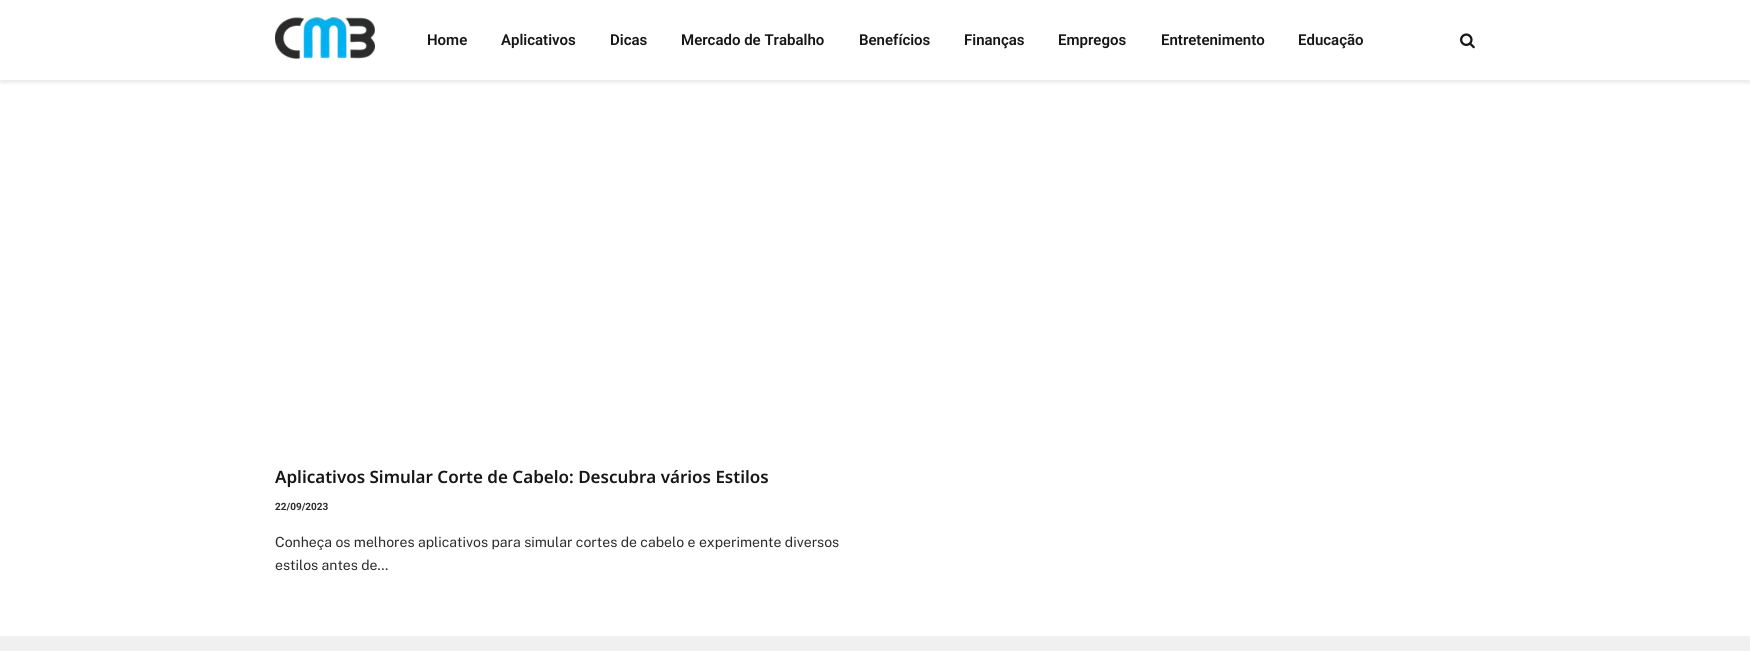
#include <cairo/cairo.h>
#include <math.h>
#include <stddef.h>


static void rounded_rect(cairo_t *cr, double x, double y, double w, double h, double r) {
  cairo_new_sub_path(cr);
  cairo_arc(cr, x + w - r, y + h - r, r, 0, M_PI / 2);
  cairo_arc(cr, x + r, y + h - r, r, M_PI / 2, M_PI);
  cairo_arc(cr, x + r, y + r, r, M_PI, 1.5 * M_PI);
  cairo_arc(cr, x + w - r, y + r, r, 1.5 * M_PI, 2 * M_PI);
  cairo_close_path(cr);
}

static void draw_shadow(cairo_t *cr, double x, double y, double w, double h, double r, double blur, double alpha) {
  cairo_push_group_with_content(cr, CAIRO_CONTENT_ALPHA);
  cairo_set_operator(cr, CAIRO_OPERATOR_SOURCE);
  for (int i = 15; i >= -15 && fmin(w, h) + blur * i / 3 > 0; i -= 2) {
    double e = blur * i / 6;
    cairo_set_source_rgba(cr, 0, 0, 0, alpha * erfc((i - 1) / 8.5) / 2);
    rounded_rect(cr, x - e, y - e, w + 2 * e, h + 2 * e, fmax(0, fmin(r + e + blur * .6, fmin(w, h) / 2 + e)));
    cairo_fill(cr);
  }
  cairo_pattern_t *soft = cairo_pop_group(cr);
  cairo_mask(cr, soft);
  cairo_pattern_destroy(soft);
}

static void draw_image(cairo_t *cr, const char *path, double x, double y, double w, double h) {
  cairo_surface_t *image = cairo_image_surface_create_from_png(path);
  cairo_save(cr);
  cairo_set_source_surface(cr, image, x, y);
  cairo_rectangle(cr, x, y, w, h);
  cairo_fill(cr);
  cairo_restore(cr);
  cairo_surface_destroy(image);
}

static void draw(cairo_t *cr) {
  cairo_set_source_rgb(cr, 1, 1, 1);
  cairo_paint(cr);
  cairo_save(cr);
  cairo_rectangle(cr, 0, 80, 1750, 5);
  cairo_clip(cr);
  cairo_set_source_rgb(cr, 114 / 255.0, 114 / 255.0, 114 / 255.0);
  draw_shadow(cr, 0, 3, 1750, 80, 0, 2, 0.15);
  cairo_restore(cr);
  draw_image(cr, "images/1.png", 275, 17, 100, 42);
  draw_image(cr, "images/2.png", 1460, 33, 15, 16);
  cairo_set_source_rgb(cr, 240 / 255.0, 240 / 255.0, 240 / 255.0);
  cairo_rectangle(cr, 0, 636, 1750, 15);
  cairo_fill(cr);
  cairo_select_font_face(cr, "Roboto SemiBold", CAIRO_FONT_SLANT_NORMAL, CAIRO_FONT_WEIGHT_NORMAL);
  cairo_set_font_size(cr, 15);
  cairo_set_source_rgb(cr, 22 / 255.0, 22 / 255.0, 22 / 255.0);
  cairo_move_to(cr, 427, 45);
  cairo_show_text(cr, "Home");
  cairo_move_to(cr, 501, 45);
  cairo_show_text(cr, "Aplicativos");
  cairo_move_to(cr, 610, 45);
  cairo_show_text(cr, "Dicas");
  cairo_move_to(cr, 681, 45);
  cairo_show_text(cr, "Mercado de Trabalho");
  cairo_move_to(cr, 859, 45);
  cairo_show_text(cr, "Benefícios");
  cairo_move_to(cr, 964, 45);
  cairo_show_text(cr, "Finanças");
  cairo_move_to(cr, 1058, 45);
  cairo_show_text(cr, "Empregos");
  cairo_move_to(cr, 1161, 45);
  cairo_show_text(cr, "Entretenimento");
  cairo_move_to(cr, 1298, 45);
  cairo_show_text(cr, "Educação");
  cairo_select_font_face(cr, "Noto Sans SemiBold", CAIRO_FONT_SLANT_NORMAL, CAIRO_FONT_WEIGHT_NORMAL);
  cairo_set_font_size(cr, 17);
  cairo_move_to(cr, 275, 483);
  cairo_show_text(cr, "Aplicativos Simular Corte de Cabelo: Descubra vários Estilos");
  cairo_select_font_face(cr, "Roboto", CAIRO_FONT_SLANT_NORMAL, CAIRO_FONT_WEIGHT_BOLD);
  cairo_set_font_size(cr, 10);
  cairo_set_source_rgb(cr, 43 / 255.0, 43 / 255.0, 43 / 255.0);
  cairo_move_to(cr, 275, 510);
  cairo_show_text(cr, "22/09/2023");
  cairo_select_font_face(cr, "Public Sans", CAIRO_FONT_SLANT_NORMAL, CAIRO_FONT_WEIGHT_NORMAL);
  cairo_set_font_size(cr, 14);
  cairo_move_to(cr, 275, 547);
  cairo_show_text(cr, "Conheça os melhores aplicativos para simular cortes de cabelo e experimente diversos");
  cairo_move_to(cr, 275, 570);
  cairo_show_text(cr, "estilos antes de…");
}

int main(void) {
  cairo_surface_t *surface = cairo_image_surface_create(CAIRO_FORMAT_RGB24, 1750, 651);
  cairo_t *cr = cairo_create(surface);
  cairo_font_options_t *options = cairo_font_options_create();
  cairo_font_options_set_hint_metrics(options, CAIRO_HINT_METRICS_OFF);
  cairo_font_options_set_hint_style(options, CAIRO_HINT_STYLE_NONE);
  cairo_set_font_options(cr, options);
  cairo_set_miter_limit(cr, 4);
  draw(cr);
  cairo_surface_write_to_png(surface, "out.png");
  cairo_font_options_destroy(options);
  cairo_destroy(cr);
  cairo_surface_destroy(surface);
  return 0;
}
